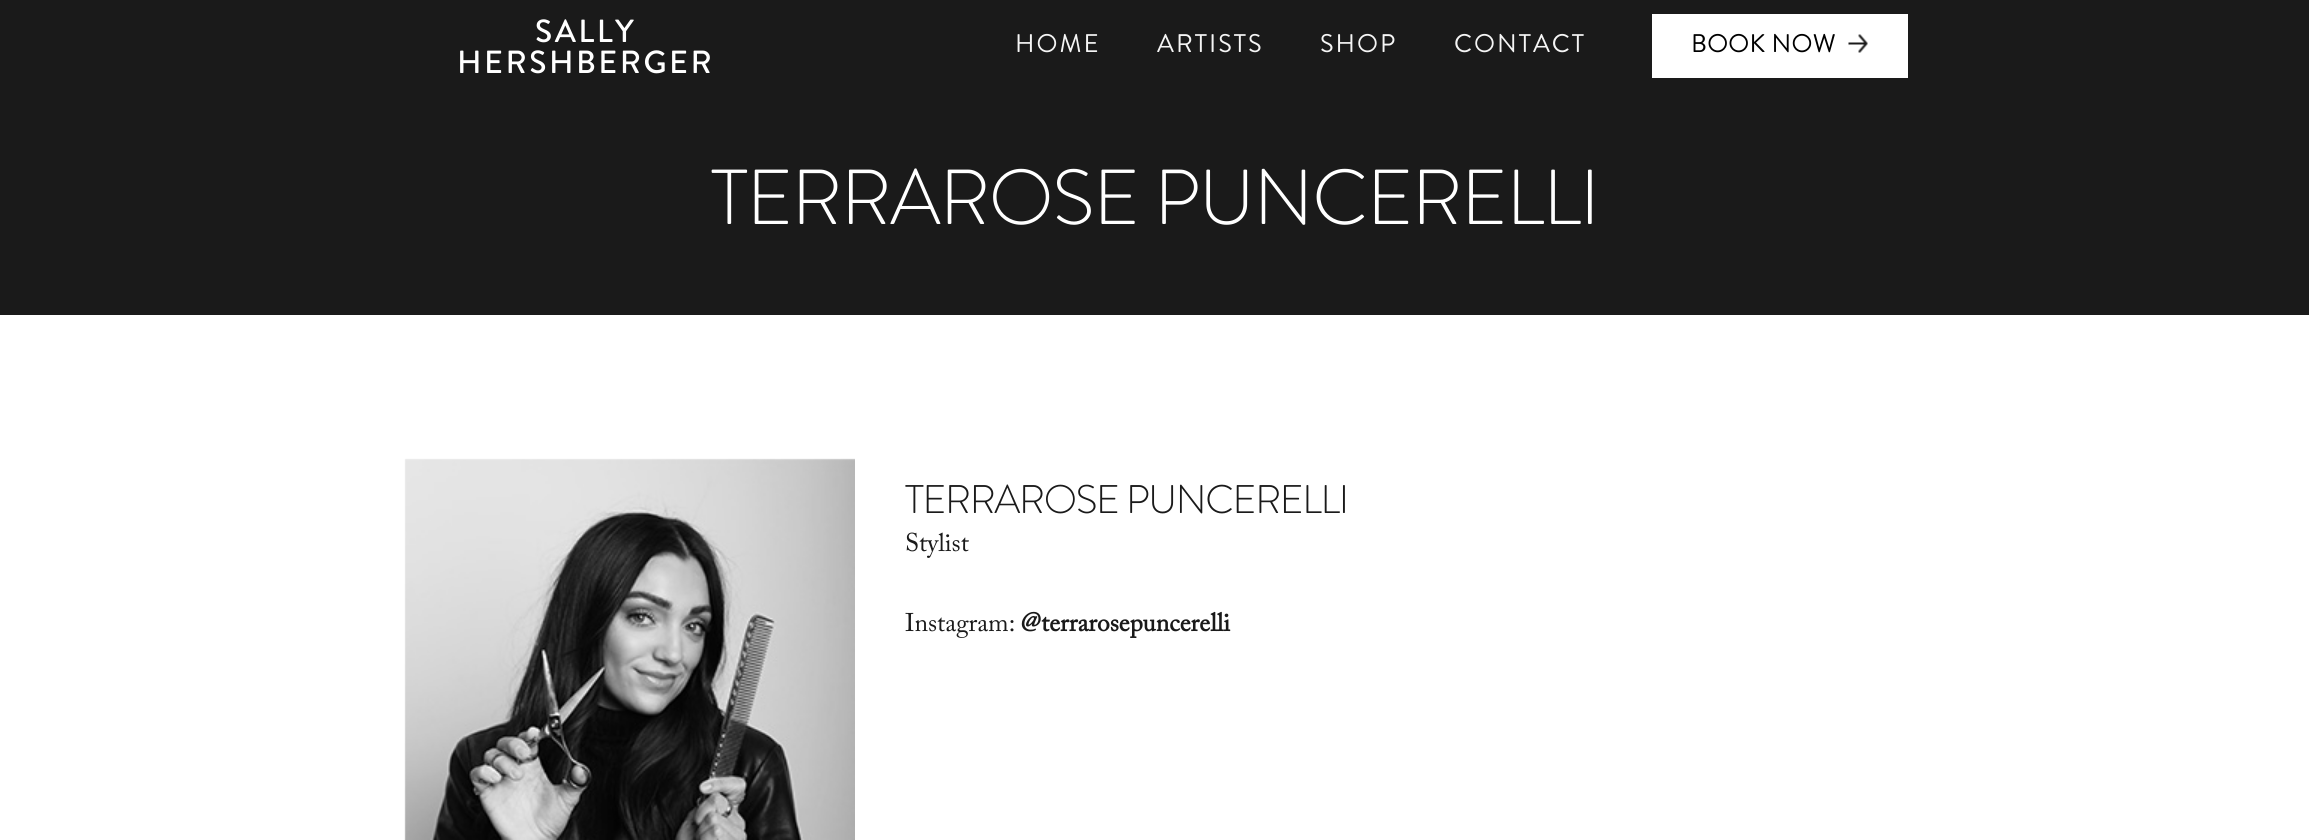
#include <cairo/cairo.h>
#include <math.h>
#include <stddef.h>


static void draw_spaced(cairo_t *cr, double x, double y, const char *s, double letter, double word) {
  cairo_move_to(cr, x, y);
  while (*s) {
    char ch[5] = {0};
    int n = 0;
    do ch[n++] = *s++; while ((*s & 0xC0) == 0x80);
    cairo_show_text(cr, ch);
    cairo_rel_move_to(cr, letter + word * (*ch == ' '), 0);
  }
}

static void draw_image(cairo_t *cr, const char *path, double x, double y, double w, double h) {
  cairo_surface_t *image = cairo_image_surface_create_from_png(path);
  cairo_save(cr);
  cairo_set_source_surface(cr, image, x, y);
  cairo_rectangle(cr, x, y, w, h);
  cairo_fill(cr);
  cairo_restore(cr);
  cairo_surface_destroy(image);
}

static void draw(cairo_t *cr) {
  cairo_set_source_rgb(cr, 1, 1, 1);
  cairo_paint(cr);
  cairo_set_source_rgb(cr, 26 / 255.0, 26 / 255.0, 26 / 255.0);
  cairo_rectangle(cr, 0, 0, 2309, 315);
  cairo_fill(cr);
  cairo_set_source_rgb(cr, 1, 1, 1);
  cairo_rectangle(cr, 1652, 14, 256, 64);
  cairo_fill(cr);
  draw_image(cr, "images/1.png", 1848, 34, 20, 19);
  draw_image(cr, "images/2.png", 404, 458, 451, 382);
  cairo_select_font_face(cr, "Brandon Grotesque Medium", CAIRO_FONT_SLANT_NORMAL, CAIRO_FONT_WEIGHT_NORMAL);
  cairo_set_font_size(cr, 32);
  draw_spaced(cr, 535, 42, "SALLY", 2.5, 0);
  draw_spaced(cr, 457, 73, "HERSHBERGER", 2.5, 0);
  cairo_select_font_face(cr, "Brandon Grotesque", CAIRO_FONT_SLANT_NORMAL, CAIRO_FONT_WEIGHT_NORMAL);
  cairo_set_font_size(cr, 25.5);
  cairo_set_source_rgb(cr, 245 / 255.0, 245 / 255.0, 245 / 255.0);
  draw_spaced(cr, 1015, 52, "HOME", 2, 0);
  draw_spaced(cr, 1157, 52, "ARTISTS", 2, 0);
  draw_spaced(cr, 1320, 52, "SHOP", 2, 0);
  draw_spaced(cr, 1454, 52, "CONTACT", 2, 0);
  cairo_set_source_rgb(cr, 0, 0, 0);
  draw_spaced(cr, 1691, 52, "BOOK NOW", 0.25, 0);
  cairo_select_font_face(cr, "Brandon Grotesque Light", CAIRO_FONT_SLANT_NORMAL, CAIRO_FONT_WEIGHT_NORMAL);
  cairo_set_font_size(cr, 77.75);
  cairo_set_source_rgb(cr, 1, 1, 1);
  draw_spaced(cr, 711, 224, "TERRAROSE PUNCERELLI", -1.3, 0);
  cairo_set_font_size(cr, 39.9);
  cairo_set_source_rgb(cr, 26 / 255.0, 26 / 255.0, 26 / 255.0);
  draw_spaced(cr, 905, 513, "TERRAROSE PUNCERELLI", -1.3, 0);
  cairo_select_font_face(cr, "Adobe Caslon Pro", CAIRO_FONT_SLANT_NORMAL, CAIRO_FONT_WEIGHT_NORMAL);
  cairo_set_font_size(cr, 25.5);
  cairo_move_to(cr, 905, 551);
  cairo_show_text(cr, "Stylist");
  cairo_move_to(cr, 905, 631);
  cairo_show_text(cr, "Instagram:");
  cairo_select_font_face(cr, "Adobe Caslon Pro", CAIRO_FONT_SLANT_NORMAL, CAIRO_FONT_WEIGHT_BOLD);
  cairo_move_to(cr, 1021, 631);
  cairo_show_text(cr, "@terrarosepuncerelli");
}

int main(void) {
  cairo_surface_t *surface = cairo_image_surface_create(CAIRO_FORMAT_RGB24, 2309, 840);
  cairo_t *cr = cairo_create(surface);
  cairo_font_options_t *options = cairo_font_options_create();
  cairo_font_options_set_hint_metrics(options, CAIRO_HINT_METRICS_OFF);
  cairo_font_options_set_hint_style(options, CAIRO_HINT_STYLE_NONE);
  cairo_set_font_options(cr, options);
  cairo_set_miter_limit(cr, 4);
  draw(cr);
  cairo_surface_write_to_png(surface, "out.png");
  cairo_font_options_destroy(options);
  cairo_destroy(cr);
  cairo_surface_destroy(surface);
  return 0;
}
